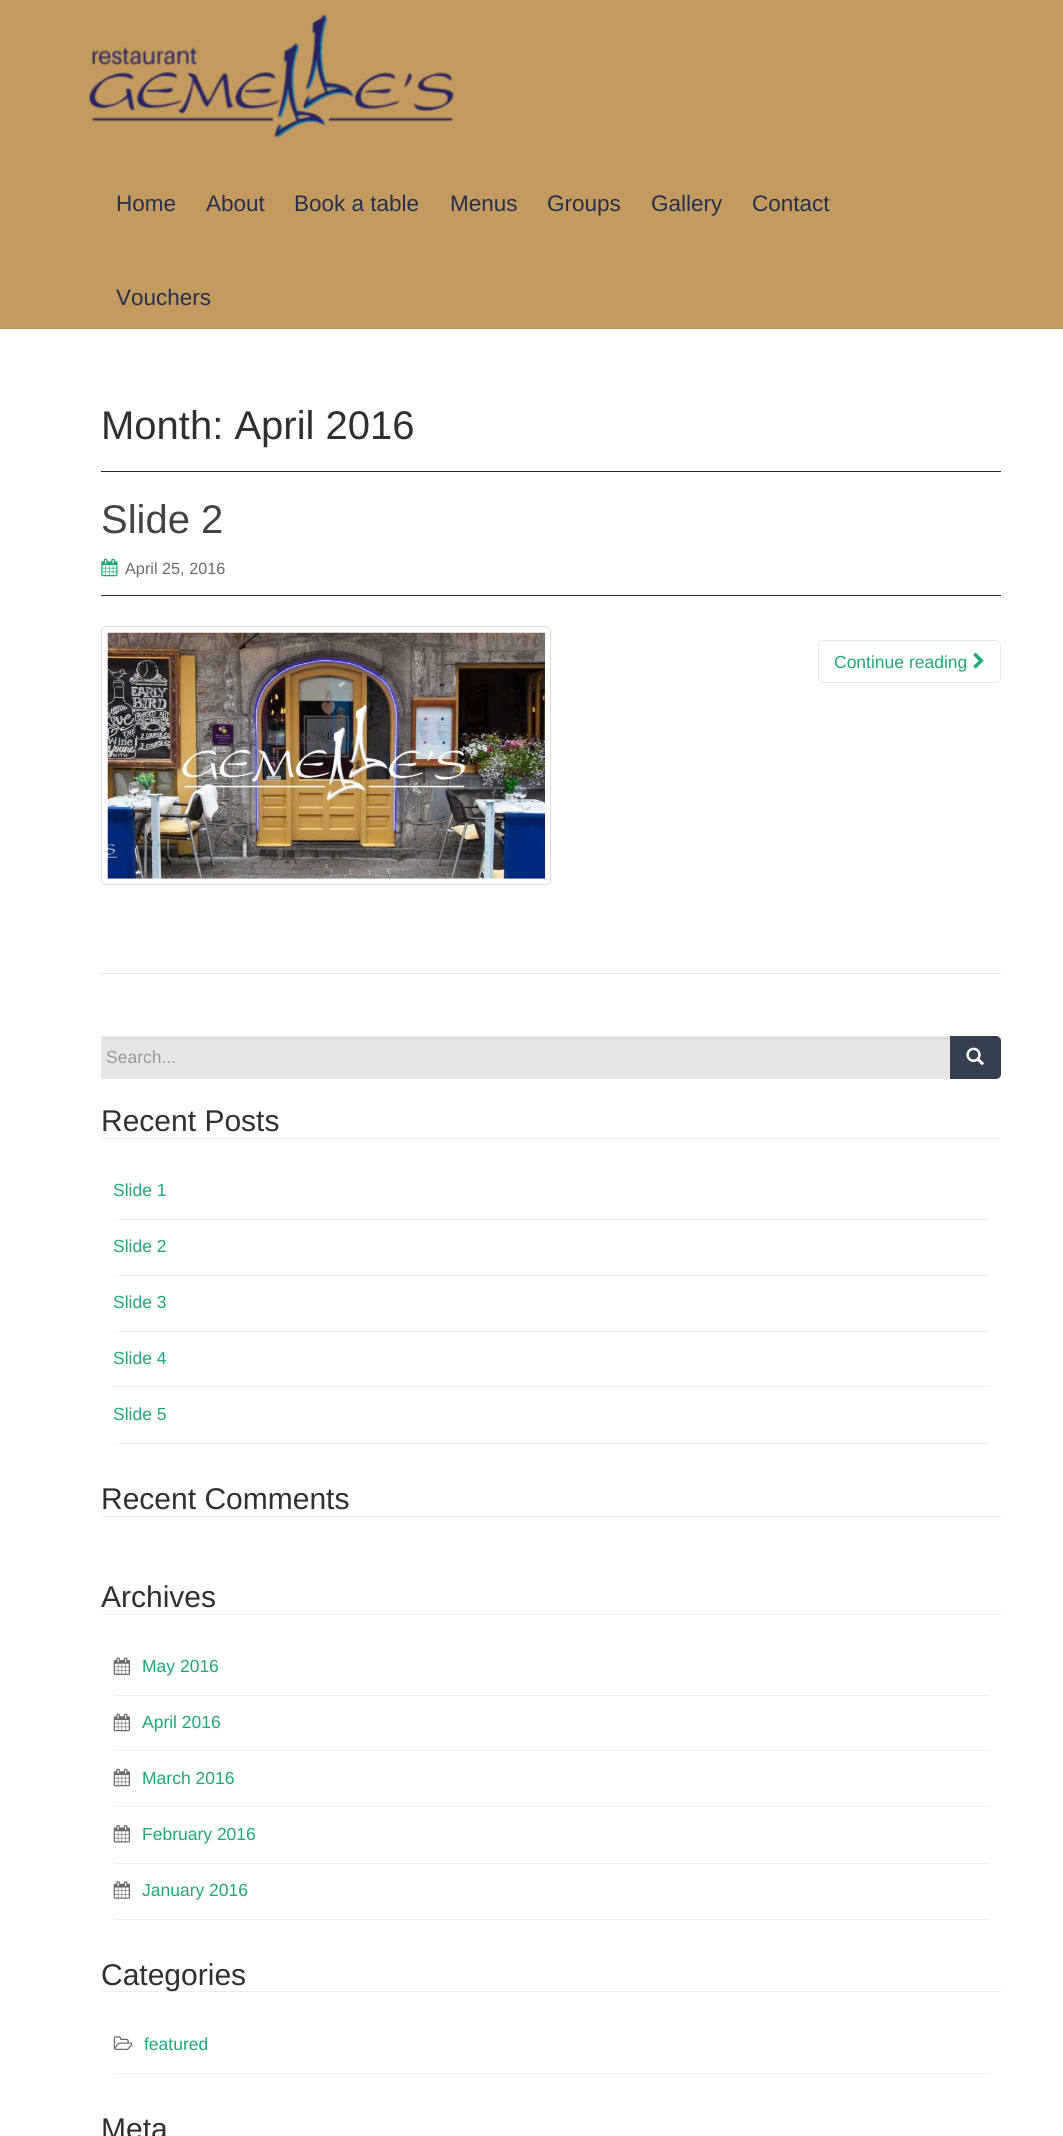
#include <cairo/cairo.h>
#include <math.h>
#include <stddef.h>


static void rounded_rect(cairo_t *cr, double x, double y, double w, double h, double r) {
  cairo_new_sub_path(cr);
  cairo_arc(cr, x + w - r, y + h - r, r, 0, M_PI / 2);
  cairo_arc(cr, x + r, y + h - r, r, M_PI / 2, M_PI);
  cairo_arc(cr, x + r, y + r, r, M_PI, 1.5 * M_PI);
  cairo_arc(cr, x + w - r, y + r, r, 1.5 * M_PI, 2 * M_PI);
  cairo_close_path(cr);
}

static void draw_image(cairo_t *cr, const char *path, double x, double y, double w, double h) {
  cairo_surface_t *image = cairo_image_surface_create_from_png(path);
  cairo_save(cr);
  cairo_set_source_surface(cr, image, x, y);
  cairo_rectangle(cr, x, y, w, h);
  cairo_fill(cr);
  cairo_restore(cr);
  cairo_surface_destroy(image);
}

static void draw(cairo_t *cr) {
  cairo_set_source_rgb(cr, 1, 1, 1);
  cairo_paint(cr);
  cairo_set_source_rgb(cr, 196 / 255.0, 155 / 255.0, 94 / 255.0);
  cairo_rectangle(cr, 0, 0, 1063, 329);
  cairo_fill(cr);
  draw_image(cr, "images/1.png", 88, 14, 366, 125);
  cairo_set_source_rgb(cr, 40 / 255.0, 40 / 255.0, 40 / 255.0);
  cairo_rectangle(cr, 101, 471, 900, 1);
  cairo_fill(cr);
  cairo_rectangle(cr, 101, 595, 900, 1);
  cairo_fill(cr);
  draw_image(cr, "images/2.png", 101, 558, 17, 19);
  rounded_rect(cr, 101.5, 626.5, 449, 258, 4.5);
  cairo_set_source_rgb(cr, 221 / 255.0, 221 / 255.0, 221 / 255.0);
  cairo_set_line_width(cr, 1);
  cairo_stroke(cr);
  draw_image(cr, "images/3.png", 107, 632, 438, 247);
  rounded_rect(cr, 818.5, 640.5, 182, 42, 4.5);
  cairo_set_source_rgb(cr, 232 / 255.0, 232 / 255.0, 232 / 255.0);
  cairo_stroke(cr);
  draw_image(cr, "images/4.png", 973, 652, 11, 17);
  cairo_rectangle(cr, 101, 973, 900, 1);
  cairo_fill(cr);
  cairo_set_source_rgb(cr, 230 / 255.0, 230 / 255.0, 230 / 255.0);
  cairo_rectangle(cr, 102, 1037, 848, 41);
  cairo_fill(cr);
  cairo_set_source_rgb(cr, 213 / 255.0, 213 / 255.0, 213 / 255.0);
  cairo_rectangle(cr, 103, 1038, 847, 1);
  cairo_fill(cr);
  cairo_rectangle(cr, 101.5, 1036.5, 849, 42);
  cairo_set_source_rgb(cr, 232 / 255.0, 232 / 255.0, 232 / 255.0);
  cairo_stroke(cr);
  cairo_set_source_rgb(cr, 52 / 255.0, 63 / 255.0, 79 / 255.0);
  cairo_new_path(cr);
  cairo_move_to(cr, 950.5, 1036.5);
  cairo_line_to(cr, 996, 1036.5);
  cairo_curve_to(cr, 998.5, 1036.5, 1000.5, 1038.5, 1000.5, 1041);
  cairo_line_to(cr, 1000.5, 1074);
  cairo_curve_to(cr, 1000.5, 1076.5, 998.5, 1078.5, 996, 1078.5);
  cairo_line_to(cr, 950.5, 1078.5);
  cairo_close_path(cr);
  cairo_fill_preserve(cr);
  cairo_stroke(cr);
  draw_image(cr, "images/5.png", 966, 1047, 18, 18);
  cairo_set_source_rgb(cr, 238 / 255.0, 238 / 255.0, 238 / 255.0);
  cairo_rectangle(cr, 101, 1138, 900, 1);
  cairo_fill(cr);
  cairo_rectangle(cr, 114, 1219, 875, 1);
  cairo_fill(cr);
  cairo_rectangle(cr, 114, 1275, 875, 1);
  cairo_fill(cr);
  cairo_rectangle(cr, 114, 1331, 875, 1);
  cairo_fill(cr);
  cairo_rectangle(cr, 114, 1386, 875, 1);
  cairo_fill(cr);
  cairo_rectangle(cr, 114, 1443, 875, 1);
  cairo_fill(cr);
  cairo_rectangle(cr, 101, 1516, 900, 1);
  cairo_fill(cr);
  cairo_rectangle(cr, 101, 1614, 900, 1);
  cairo_fill(cr);
  cairo_rectangle(cr, 114, 1695, 875, 1);
  cairo_fill(cr);
  draw_image(cr, "images/6.png", 113, 1657, 17, 18);
  cairo_rectangle(cr, 114, 1750, 875, 1);
  cairo_fill(cr);
  draw_image(cr, "images/7.png", 113, 1713, 17, 19);
  cairo_rectangle(cr, 114, 1806, 875, 1);
  cairo_fill(cr);
  draw_image(cr, "images/7.png", 113, 1768, 17, 19);
  cairo_rectangle(cr, 114, 1863, 875, 1);
  cairo_fill(cr);
  draw_image(cr, "images/8.png", 113, 1825, 17, 18);
  cairo_rectangle(cr, 114, 1919, 875, 1);
  cairo_fill(cr);
  draw_image(cr, "images/9.png", 113, 1881, 17, 18);
  cairo_rectangle(cr, 101, 1991, 900, 1);
  cairo_fill(cr);
  cairo_rectangle(cr, 114, 2073, 875, 1);
  cairo_fill(cr);
  draw_image(cr, "images/10.png", 113, 2036, 20, 14);
  cairo_select_font_face(cr, "Liberation Sans", CAIRO_FONT_SLANT_NORMAL, CAIRO_FONT_WEIGHT_NORMAL);
  cairo_set_font_size(cr, 22.5);
  cairo_set_source_rgb(cr, 37 / 255.0, 47 / 255.0, 79 / 255.0);
  cairo_move_to(cr, 116, 211);
  cairo_show_text(cr, "Home");
  cairo_move_to(cr, 206, 211);
  cairo_show_text(cr, "About");
  cairo_move_to(cr, 294, 211);
  cairo_show_text(cr, "Book a table");
  cairo_move_to(cr, 450, 211);
  cairo_show_text(cr, "Menus");
  cairo_move_to(cr, 547, 211);
  cairo_show_text(cr, "Groups");
  cairo_move_to(cr, 651, 211);
  cairo_show_text(cr, "Gallery");
  cairo_move_to(cr, 752, 211);
  cairo_show_text(cr, "Contact");
  cairo_move_to(cr, 116, 305);
  cairo_show_text(cr, "Vouchers");
  cairo_set_font_size(cr, 40);
  cairo_set_source_rgb(cr, 48 / 255.0, 48 / 255.0, 48 / 255.0);
  cairo_move_to(cr, 101, 439);
  cairo_show_text(cr, "Month: April 2016");
  cairo_set_source_rgb(cr, 68 / 255.0, 68 / 255.0, 68 / 255.0);
  cairo_move_to(cr, 101, 533);
  cairo_show_text(cr, "Slide 2");
  cairo_set_font_size(cr, 16.25);
  cairo_set_source_rgb(cr, 107 / 255.0, 107 / 255.0, 107 / 255.0);
  cairo_move_to(cr, 125, 574);
  cairo_show_text(cr, "April 25, 2016");
  cairo_set_font_size(cr, 17.5);
  cairo_set_source_rgb(cr, 31 / 255.0, 166 / 255.0, 122 / 255.0);
  cairo_move_to(cr, 834, 668);
  cairo_show_text(cr, "Continue reading");
  cairo_set_source_rgb(cr, 153 / 255.0, 153 / 255.0, 153 / 255.0);
  cairo_move_to(cr, 106, 1063);
  cairo_show_text(cr, "Search...");
  cairo_set_font_size(cr, 30);
  cairo_set_source_rgb(cr, 48 / 255.0, 48 / 255.0, 48 / 255.0);
  cairo_move_to(cr, 101, 1131);
  cairo_show_text(cr, "Recent Posts");
  cairo_set_font_size(cr, 17.5);
  cairo_set_source_rgb(cr, 31 / 255.0, 166 / 255.0, 122 / 255.0);
  cairo_move_to(cr, 113, 1196);
  cairo_show_text(cr, "Slide 1");
  cairo_move_to(cr, 113, 1252);
  cairo_show_text(cr, "Slide 2");
  cairo_move_to(cr, 113, 1308);
  cairo_show_text(cr, "Slide 3");
  cairo_move_to(cr, 113, 1364);
  cairo_show_text(cr, "Slide 4");
  cairo_move_to(cr, 113, 1420);
  cairo_show_text(cr, "Slide 5");
  cairo_set_font_size(cr, 30);
  cairo_set_source_rgb(cr, 48 / 255.0, 48 / 255.0, 48 / 255.0);
  cairo_move_to(cr, 101, 1509);
  cairo_show_text(cr, "Recent Comments");
  cairo_move_to(cr, 101, 1607);
  cairo_show_text(cr, "Archives");
  cairo_set_font_size(cr, 17.5);
  cairo_set_source_rgb(cr, 31 / 255.0, 166 / 255.0, 122 / 255.0);
  cairo_move_to(cr, 142, 1672);
  cairo_show_text(cr, "May 2016");
  cairo_move_to(cr, 142, 1728);
  cairo_show_text(cr, "April 2016");
  cairo_move_to(cr, 142, 1784);
  cairo_show_text(cr, "March 2016");
  cairo_move_to(cr, 142, 1840);
  cairo_show_text(cr, "February 2016");
  cairo_move_to(cr, 142, 1896);
  cairo_show_text(cr, "January 2016");
  cairo_set_font_size(cr, 30);
  cairo_set_source_rgb(cr, 48 / 255.0, 48 / 255.0, 48 / 255.0);
  cairo_move_to(cr, 101, 1985);
  cairo_show_text(cr, "Categories");
  cairo_set_font_size(cr, 17.5);
  cairo_set_source_rgb(cr, 31 / 255.0, 166 / 255.0, 122 / 255.0);
  cairo_move_to(cr, 144, 2050);
  cairo_show_text(cr, "featured");
  cairo_set_font_size(cr, 30);
  cairo_set_source_rgb(cr, 48 / 255.0, 48 / 255.0, 48 / 255.0);
  cairo_move_to(cr, 101, 2139);
  cairo_show_text(cr, "Meta");
}

int main(void) {
  cairo_surface_t *surface = cairo_image_surface_create(CAIRO_FORMAT_RGB24, 1063, 2136);
  cairo_t *cr = cairo_create(surface);
  cairo_font_options_t *options = cairo_font_options_create();
  cairo_font_options_set_hint_metrics(options, CAIRO_HINT_METRICS_OFF);
  cairo_font_options_set_hint_style(options, CAIRO_HINT_STYLE_NONE);
  cairo_set_font_options(cr, options);
  cairo_set_miter_limit(cr, 4);
  draw(cr);
  cairo_surface_write_to_png(surface, "out.png");
  cairo_font_options_destroy(options);
  cairo_destroy(cr);
  cairo_surface_destroy(surface);
  return 0;
}
